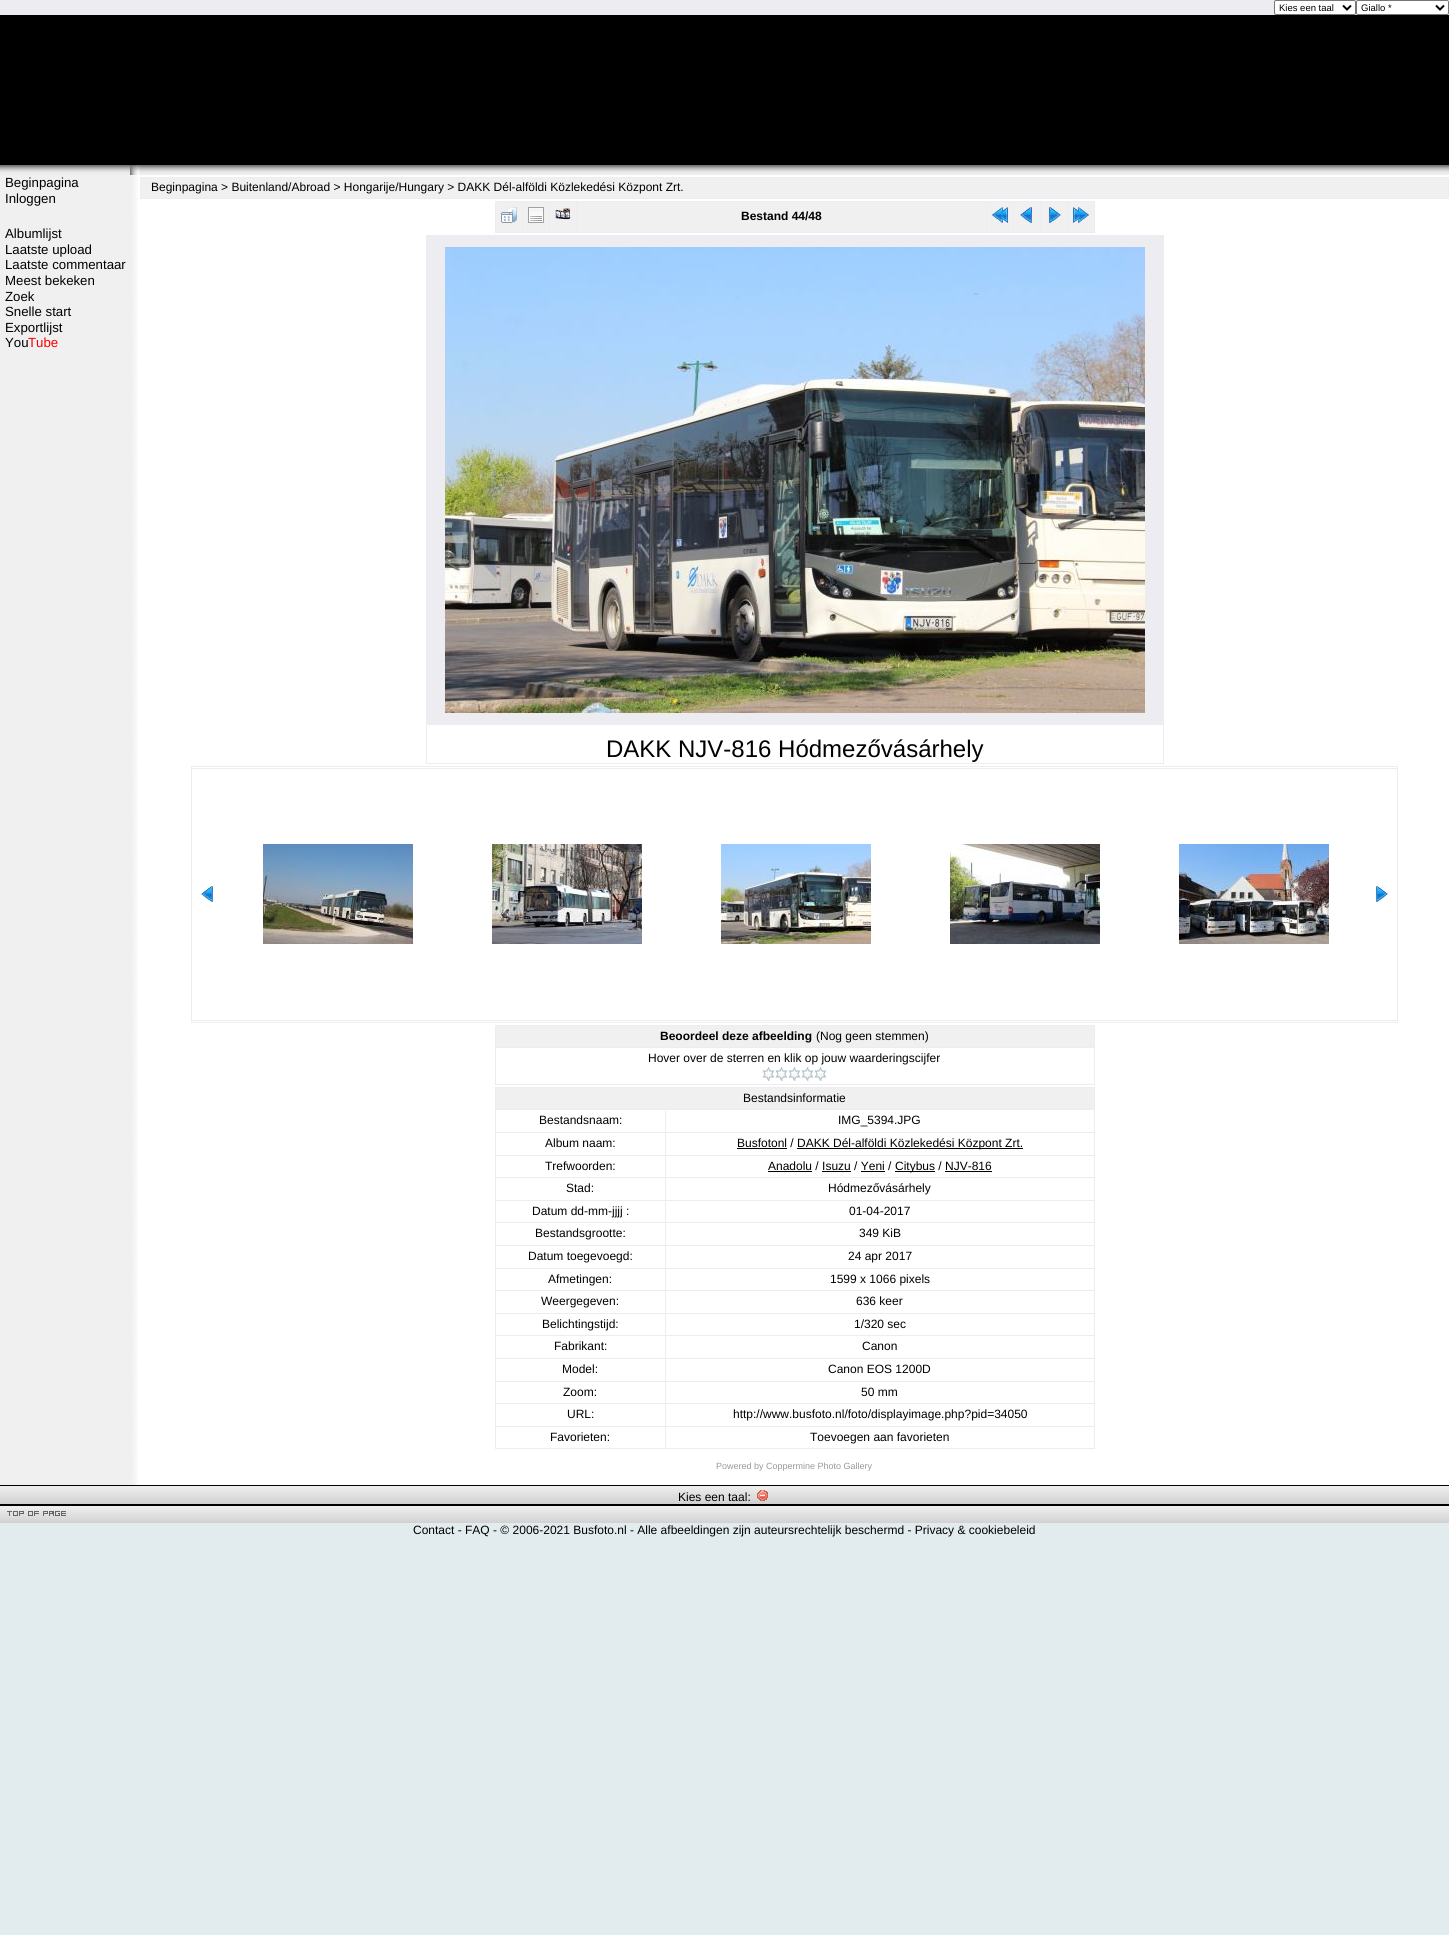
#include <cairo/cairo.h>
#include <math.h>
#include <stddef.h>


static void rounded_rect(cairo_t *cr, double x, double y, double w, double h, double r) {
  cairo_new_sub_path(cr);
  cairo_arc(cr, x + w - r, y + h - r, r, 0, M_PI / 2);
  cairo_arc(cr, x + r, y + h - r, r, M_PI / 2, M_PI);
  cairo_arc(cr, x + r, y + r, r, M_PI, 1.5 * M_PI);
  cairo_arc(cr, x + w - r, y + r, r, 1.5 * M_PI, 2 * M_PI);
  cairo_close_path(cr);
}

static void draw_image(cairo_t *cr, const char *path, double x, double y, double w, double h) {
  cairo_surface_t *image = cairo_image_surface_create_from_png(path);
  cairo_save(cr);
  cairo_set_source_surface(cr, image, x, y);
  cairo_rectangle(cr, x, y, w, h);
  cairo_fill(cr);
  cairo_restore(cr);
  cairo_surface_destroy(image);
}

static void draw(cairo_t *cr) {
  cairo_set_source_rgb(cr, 226 / 255.0, 235 / 255.0, 237 / 255.0);
  cairo_paint(cr);
  cairo_set_source_rgb(cr, 236 / 255.0, 236 / 255.0, 241 / 255.0);
  cairo_rectangle(cr, 0, 0, 1356, 15);
  cairo_fill(cr);
  cairo_set_source_rgb(cr, 1, 1, 1);
  rounded_rect(cr, 1274.5, 0.5, 81, 14, 1.5);
  cairo_fill_preserve(cr);
  cairo_set_source_rgb(cr, 118 / 255.0, 118 / 255.0, 118 / 255.0);
  cairo_set_line_width(cr, 1);
  cairo_stroke(cr);
  cairo_new_path(cr);
  cairo_move_to(cr, 1343, 5.5);
  cairo_line_to(cr, 1347, 9.5);
  cairo_line_to(cr, 1351, 5.5);
  cairo_set_source_rgb(cr, 0, 0, 0);
  cairo_set_line_width(cr, 2);
  cairo_stroke(cr);
  cairo_set_source_rgb(cr, 1, 1, 1);
  cairo_rectangle(cr, 1356, 0, 93, 15);
  cairo_fill(cr);
  rounded_rect(cr, 1356.5, 0.5, 92, 14, 1.5);
  cairo_set_source_rgb(cr, 118 / 255.0, 118 / 255.0, 118 / 255.0);
  cairo_set_line_width(cr, 1);
  cairo_stroke(cr);
  cairo_new_path(cr);
  cairo_move_to(cr, 1436, 5.5);
  cairo_line_to(cr, 1440, 9.5);
  cairo_line_to(cr, 1444, 5.5);
  cairo_set_source_rgb(cr, 0, 0, 0);
  cairo_set_line_width(cr, 2);
  cairo_stroke(cr);
  cairo_rectangle(cr, 0, 15, 1449, 150);
  cairo_fill(cr);
  cairo_set_source_rgb(cr, 236 / 255.0, 236 / 255.0, 241 / 255.0);
  cairo_rectangle(cr, 0, 173, 130, 2);
  cairo_fill(cr);
  draw_image(cr, "images/1.png", 0, 165, 130, 8);
  draw_image(cr, "images/2.png", 130, 165, 10, 10);
  draw_image(cr, "images/3.png", 140, 165, 1309, 10);
  cairo_set_source_rgb(cr, 240 / 255.0, 240 / 255.0, 240 / 255.0);
  cairo_rectangle(cr, 0, 175, 130, 1310);
  cairo_fill(cr);
  draw_image(cr, "images/4.png", 130, 175, 10, 1310);
  cairo_set_source_rgb(cr, 1, 1, 1);
  cairo_rectangle(cr, 140, 175, 1309, 1310);
  cairo_fill(cr);
  cairo_set_source_rgb(cr, 236 / 255.0, 236 / 255.0, 241 / 255.0);
  cairo_rectangle(cr, 140, 177, 1309, 22);
  cairo_fill(cr);
  cairo_set_source_rgb(cr, 240 / 255.0, 240 / 255.0, 240 / 255.0);
  cairo_rectangle(cr, 141, 178, 1307, 20);
  cairo_fill(cr);
  cairo_set_source_rgb(cr, 236 / 255.0, 236 / 255.0, 241 / 255.0);
  cairo_rectangle(cr, 495, 201, 600, 32);
  cairo_fill(cr);
  cairo_set_source_rgb(cr, 240 / 255.0, 240 / 255.0, 240 / 255.0);
  cairo_rectangle(cr, 496, 202, 26, 30);
  cairo_fill(cr);
  draw_image(cr, "images/5.png", 501, 207, 16, 16);
  cairo_rectangle(cr, 523, 202, 26, 30);
  cairo_fill(cr);
  draw_image(cr, "images/6.png", 528, 207, 16, 16);
  cairo_rectangle(cr, 550, 202, 26, 30);
  cairo_fill(cr);
  draw_image(cr, "images/7.png", 555, 208, 16, 12);
  cairo_rectangle(cr, 577, 202, 409, 30);
  cairo_fill(cr);
  cairo_rectangle(cr, 987, 202, 26, 30);
  cairo_fill(cr);
  draw_image(cr, "images/8.png", 992, 207, 16, 16);
  cairo_rectangle(cr, 1014, 202, 26, 30);
  cairo_fill(cr);
  draw_image(cr, "images/9.png", 1020, 207, 12, 16);
  cairo_rectangle(cr, 1041, 202, 26, 30);
  cairo_fill(cr);
  draw_image(cr, "images/10.png", 1049, 207, 12, 16);
  cairo_rectangle(cr, 1068, 202, 26, 30);
  cairo_fill(cr);
  draw_image(cr, "images/11.png", 1073, 207, 16, 16);
  cairo_set_source_rgb(cr, 236 / 255.0, 236 / 255.0, 241 / 255.0);
  cairo_rectangle(cr, 426, 235, 738, 529);
  cairo_fill(cr);
  draw_image(cr, "images/12.png", 445, 247, 700, 466);
  cairo_set_source_rgb(cr, 1, 1, 1);
  cairo_rectangle(cr, 427, 725, 736, 38);
  cairo_fill(cr);
  cairo_set_source_rgb(cr, 236 / 255.0, 236 / 255.0, 241 / 255.0);
  cairo_rectangle(cr, 191, 766, 1207, 257);
  cairo_fill(cr);
  cairo_set_source_rgb(cr, 1, 1, 1);
  cairo_rectangle(cr, 192, 767, 1205, 1);
  cairo_fill(cr);
  cairo_rectangle(cr, 192, 769, 1205, 251);
  cairo_fill(cr);
  draw_image(cr, "images/13.png", 201, 886, 12, 16);
  draw_image(cr, "images/14.png", 263, 844, 150, 100);
  draw_image(cr, "images/15.png", 492, 844, 150, 100);
  draw_image(cr, "images/16.png", 721, 844, 150, 100);
  draw_image(cr, "images/17.png", 950, 844, 150, 100);
  draw_image(cr, "images/18.png", 1179, 844, 150, 100);
  draw_image(cr, "images/19.png", 1376, 886, 12, 16);
  cairo_rectangle(cr, 192, 1021, 1205, 1);
  cairo_fill(cr);
  cairo_set_source_rgb(cr, 236 / 255.0, 236 / 255.0, 241 / 255.0);
  cairo_rectangle(cr, 495, 1025, 600, 60);
  cairo_fill(cr);
  cairo_set_source_rgb(cr, 240 / 255.0, 240 / 255.0, 240 / 255.0);
  cairo_rectangle(cr, 496, 1026, 598, 21);
  cairo_fill(cr);
  cairo_set_source_rgb(cr, 1, 1, 1);
  cairo_rectangle(cr, 496, 1048, 598, 36);
  cairo_fill(cr);
  draw_image(cr, "images/20.png", 762, 1067, 13, 14);
  draw_image(cr, "images/20.png", 775, 1067, 13, 14);
  draw_image(cr, "images/20.png", 788, 1067, 13, 14);
  draw_image(cr, "images/20.png", 801, 1067, 13, 14);
  draw_image(cr, "images/20.png", 814, 1067, 13, 14);
  cairo_set_source_rgb(cr, 236 / 255.0, 236 / 255.0, 241 / 255.0);
  cairo_rectangle(cr, 495, 1087, 600, 362);
  cairo_fill(cr);
  cairo_set_source_rgb(cr, 240 / 255.0, 240 / 255.0, 240 / 255.0);
  cairo_rectangle(cr, 496, 1088, 598, 21);
  cairo_fill(cr);
  cairo_set_source_rgb(cr, 1, 1, 1);
  cairo_rectangle(cr, 496, 1110, 169, 22);
  cairo_fill(cr);
  cairo_rectangle(cr, 666, 1110, 428, 22);
  cairo_fill(cr);
  cairo_rectangle(cr, 496, 1133, 169, 22);
  cairo_fill(cr);
  cairo_rectangle(cr, 666, 1133, 428, 22);
  cairo_fill(cr);
  cairo_set_source_rgb(cr, 0, 0, 0);
  cairo_rectangle(cr, 737, 1148, 50, 1);
  cairo_fill(cr);
  cairo_rectangle(cr, 797, 1148, 226, 1);
  cairo_fill(cr);
  cairo_set_source_rgb(cr, 1, 1, 1);
  cairo_rectangle(cr, 496, 1156, 169, 21);
  cairo_fill(cr);
  cairo_rectangle(cr, 666, 1156, 428, 21);
  cairo_fill(cr);
  cairo_set_source_rgb(cr, 0, 0, 0);
  cairo_rectangle(cr, 768, 1171, 44, 1);
  cairo_fill(cr);
  cairo_rectangle(cr, 822, 1171, 29, 1);
  cairo_fill(cr);
  cairo_rectangle(cr, 861, 1171, 24, 1);
  cairo_fill(cr);
  cairo_rectangle(cr, 895, 1171, 40, 1);
  cairo_fill(cr);
  cairo_rectangle(cr, 945, 1171, 47, 1);
  cairo_fill(cr);
  cairo_set_source_rgb(cr, 1, 1, 1);
  cairo_rectangle(cr, 496, 1178, 169, 22);
  cairo_fill(cr);
  cairo_rectangle(cr, 666, 1178, 428, 22);
  cairo_fill(cr);
  cairo_rectangle(cr, 496, 1201, 169, 21);
  cairo_fill(cr);
  cairo_rectangle(cr, 666, 1201, 428, 21);
  cairo_fill(cr);
  cairo_rectangle(cr, 496, 1223, 169, 22);
  cairo_fill(cr);
  cairo_rectangle(cr, 666, 1223, 428, 22);
  cairo_fill(cr);
  cairo_rectangle(cr, 496, 1246, 169, 22);
  cairo_fill(cr);
  cairo_rectangle(cr, 666, 1246, 428, 22);
  cairo_fill(cr);
  cairo_rectangle(cr, 496, 1269, 169, 21);
  cairo_fill(cr);
  cairo_rectangle(cr, 666, 1269, 428, 21);
  cairo_fill(cr);
  cairo_rectangle(cr, 496, 1291, 169, 22);
  cairo_fill(cr);
  cairo_rectangle(cr, 666, 1291, 428, 22);
  cairo_fill(cr);
  cairo_rectangle(cr, 496, 1314, 169, 21);
  cairo_fill(cr);
  cairo_rectangle(cr, 666, 1314, 428, 21);
  cairo_fill(cr);
  cairo_rectangle(cr, 496, 1336, 169, 22);
  cairo_fill(cr);
  cairo_rectangle(cr, 666, 1336, 428, 22);
  cairo_fill(cr);
  cairo_rectangle(cr, 496, 1359, 169, 22);
  cairo_fill(cr);
  cairo_rectangle(cr, 666, 1359, 428, 22);
  cairo_fill(cr);
  cairo_rectangle(cr, 496, 1382, 169, 21);
  cairo_fill(cr);
  cairo_rectangle(cr, 666, 1382, 428, 21);
  cairo_fill(cr);
  cairo_rectangle(cr, 496, 1404, 169, 22);
  cairo_fill(cr);
  cairo_rectangle(cr, 666, 1404, 428, 22);
  cairo_fill(cr);
  cairo_rectangle(cr, 496, 1427, 169, 21);
  cairo_fill(cr);
  cairo_rectangle(cr, 666, 1427, 428, 21);
  cairo_fill(cr);
  draw_image(cr, "images/21.png", 0, 1485, 1449, 20);
  draw_image(cr, "images/22.png", 757, 1490, 11, 11);
  draw_image(cr, "images/23.png", 0, 1505, 1380, 18);
  draw_image(cr, "images/24.png", 7, 1511, 59, 5);
  draw_image(cr, "images/25.png", 1380, 1505, 69, 18);
  cairo_select_font_face(cr, "Liberation Sans", CAIRO_FONT_SLANT_NORMAL, CAIRO_FONT_WEIGHT_NORMAL);
  cairo_set_font_size(cr, 9.5);
  cairo_set_source_rgb(cr, 0, 0, 0);
  cairo_move_to(cr, 1279, 11);
  cairo_show_text(cr, "Kies een taal");
  cairo_move_to(cr, 1361, 11);
  cairo_show_text(cr, "Giallo *");
  cairo_set_font_size(cr, 13.25);
  cairo_move_to(cr, 5, 187);
  cairo_show_text(cr, "Beginpagina");
  cairo_move_to(cr, 5, 203);
  cairo_show_text(cr, "Inloggen");
  cairo_move_to(cr, 5, 238);
  cairo_show_text(cr, "Albumlijst");
  cairo_move_to(cr, 5, 254);
  cairo_show_text(cr, "Laatste upload");
  cairo_move_to(cr, 5, 269);
  cairo_show_text(cr, "Laatste commentaar");
  cairo_move_to(cr, 5, 285);
  cairo_show_text(cr, "Meest bekeken");
  cairo_move_to(cr, 5, 301);
  cairo_show_text(cr, "Zoek");
  cairo_move_to(cr, 5, 316);
  cairo_show_text(cr, "Snelle start");
  cairo_move_to(cr, 5, 332);
  cairo_show_text(cr, "Exportlijst");
  cairo_move_to(cr, 5, 347);
  cairo_show_text(cr, "You");
  cairo_set_source_rgb(cr, 1, 0, 0);
  cairo_move_to(cr, 28, 347);
  cairo_show_text(cr, "Tube");
  cairo_set_font_size(cr, 12);
  cairo_set_source_rgb(cr, 0, 0, 0);
  cairo_move_to(cr, 151, 191);
  cairo_show_text(cr, "Beginpagina > Buitenland/Abroad > Hongarije/Hungary > DAKK Dél-alföldi Közlekedési Központ Zrt.");
  cairo_select_font_face(cr, "Liberation Sans", CAIRO_FONT_SLANT_NORMAL, CAIRO_FONT_WEIGHT_BOLD);
  cairo_move_to(cr, 741, 220);
  cairo_show_text(cr, "Bestand 44/48");
  cairo_select_font_face(cr, "Liberation Sans", CAIRO_FONT_SLANT_NORMAL, CAIRO_FONT_WEIGHT_NORMAL);
  cairo_set_font_size(cr, 24);
  cairo_move_to(cr, 606, 757);
  cairo_show_text(cr, "DAKK NJV-816 Hódmezővásárhely");
  cairo_select_font_face(cr, "Liberation Sans", CAIRO_FONT_SLANT_NORMAL, CAIRO_FONT_WEIGHT_BOLD);
  cairo_set_font_size(cr, 12);
  cairo_move_to(cr, 660, 1040);
  cairo_show_text(cr, "Beoordeel deze afbeelding");
  cairo_select_font_face(cr, "Liberation Sans", CAIRO_FONT_SLANT_NORMAL, CAIRO_FONT_WEIGHT_NORMAL);
  cairo_move_to(cr, 816, 1040);
  cairo_show_text(cr, "(Nog geen stemmen)");
  cairo_move_to(cr, 648, 1062);
  cairo_show_text(cr, "Hover over de sterren en klik op jouw waarderingscijfer");
  cairo_move_to(cr, 743, 1102);
  cairo_show_text(cr, "Bestandsinformatie");
  cairo_move_to(cr, 539, 1124);
  cairo_show_text(cr, "Bestandsnaam:");
  cairo_move_to(cr, 838, 1124);
  cairo_show_text(cr, "IMG_5394.JPG");
  cairo_move_to(cr, 545, 1147);
  cairo_show_text(cr, "Album naam:");
  cairo_move_to(cr, 737, 1147);
  cairo_show_text(cr, "Busfotonl /");
  cairo_move_to(cr, 797, 1147);
  cairo_show_text(cr, "DAKK Dél-alföldi Közlekedési Központ Zrt.");
  cairo_move_to(cr, 545, 1170);
  cairo_show_text(cr, "Trefwoorden:");
  cairo_move_to(cr, 768, 1170);
  cairo_show_text(cr, "Anadolu / Isuzu / Yeni /");
  cairo_move_to(cr, 895, 1170);
  cairo_show_text(cr, "Citybus / NJV-816");
  cairo_move_to(cr, 566, 1192);
  cairo_show_text(cr, "Stad:");
  cairo_move_to(cr, 828, 1192);
  cairo_show_text(cr, "Hódmezővásárhely");
  cairo_move_to(cr, 532, 1215);
  cairo_show_text(cr, "Datum dd-mm-jjjj :");
  cairo_move_to(cr, 849, 1215);
  cairo_show_text(cr, "01-04-2017");
  cairo_move_to(cr, 535, 1237);
  cairo_show_text(cr, "Bestandsgrootte:");
  cairo_move_to(cr, 859, 1237);
  cairo_show_text(cr, "349 KiB");
  cairo_move_to(cr, 528, 1260);
  cairo_show_text(cr, "Datum toegevoegd:");
  cairo_move_to(cr, 848, 1260);
  cairo_show_text(cr, "24 apr 2017");
  cairo_move_to(cr, 548, 1283);
  cairo_show_text(cr, "Afmetingen:");
  cairo_move_to(cr, 830, 1283);
  cairo_show_text(cr, "1599 x 1066 pixels");
  cairo_move_to(cr, 541, 1305);
  cairo_show_text(cr, "Weergegeven:");
  cairo_move_to(cr, 856, 1305);
  cairo_show_text(cr, "636 keer");
  cairo_move_to(cr, 542, 1328);
  cairo_show_text(cr, "Belichtingstijd:");
  cairo_move_to(cr, 854, 1328);
  cairo_show_text(cr, "1/320 sec");
  cairo_move_to(cr, 554, 1350);
  cairo_show_text(cr, "Fabrikant:");
  cairo_move_to(cr, 862, 1350);
  cairo_show_text(cr, "Canon");
  cairo_move_to(cr, 562, 1373);
  cairo_show_text(cr, "Model:");
  cairo_move_to(cr, 828, 1373);
  cairo_show_text(cr, "Canon EOS 1200D");
  cairo_move_to(cr, 563, 1396);
  cairo_show_text(cr, "Zoom:");
  cairo_move_to(cr, 861, 1396);
  cairo_show_text(cr, "50 mm");
  cairo_move_to(cr, 567, 1418);
  cairo_show_text(cr, "URL:");
  cairo_move_to(cr, 733, 1418);
  cairo_show_text(cr, "http://www.busfoto.nl/foto/displayimage.php?pid=34050");
  cairo_move_to(cr, 550, 1441);
  cairo_show_text(cr, "Favorieten:");
  cairo_move_to(cr, 810, 1441);
  cairo_show_text(cr, "Toevoegen aan favorieten");
  cairo_set_font_size(cr, 9);
  cairo_set_source_rgb(cr, 153 / 255.0, 153 / 255.0, 153 / 255.0);
  cairo_move_to(cr, 716, 1469);
  cairo_show_text(cr, "Powered by Coppermine Photo Gallery");
  cairo_set_font_size(cr, 12);
  cairo_set_source_rgb(cr, 0, 0, 0);
  cairo_move_to(cr, 678, 1501);
  cairo_show_text(cr, "Kies een taal:");
  cairo_move_to(cr, 413, 1534);
  cairo_show_text(cr, "Contact - FAQ - © 2006-2021 Busfoto.nl - Alle afbeeldingen zijn auteursrechtelijk beschermd - Privacy & cookiebeleid");
}

int main(void) {
  cairo_surface_t *surface = cairo_image_surface_create(CAIRO_FORMAT_RGB24, 1449, 1935);
  cairo_t *cr = cairo_create(surface);
  cairo_font_options_t *options = cairo_font_options_create();
  cairo_font_options_set_hint_metrics(options, CAIRO_HINT_METRICS_OFF);
  cairo_font_options_set_hint_style(options, CAIRO_HINT_STYLE_NONE);
  cairo_set_font_options(cr, options);
  cairo_set_miter_limit(cr, 4);
  draw(cr);
  cairo_surface_write_to_png(surface, "out.png");
  cairo_font_options_destroy(options);
  cairo_destroy(cr);
  cairo_surface_destroy(surface);
  return 0;
}
